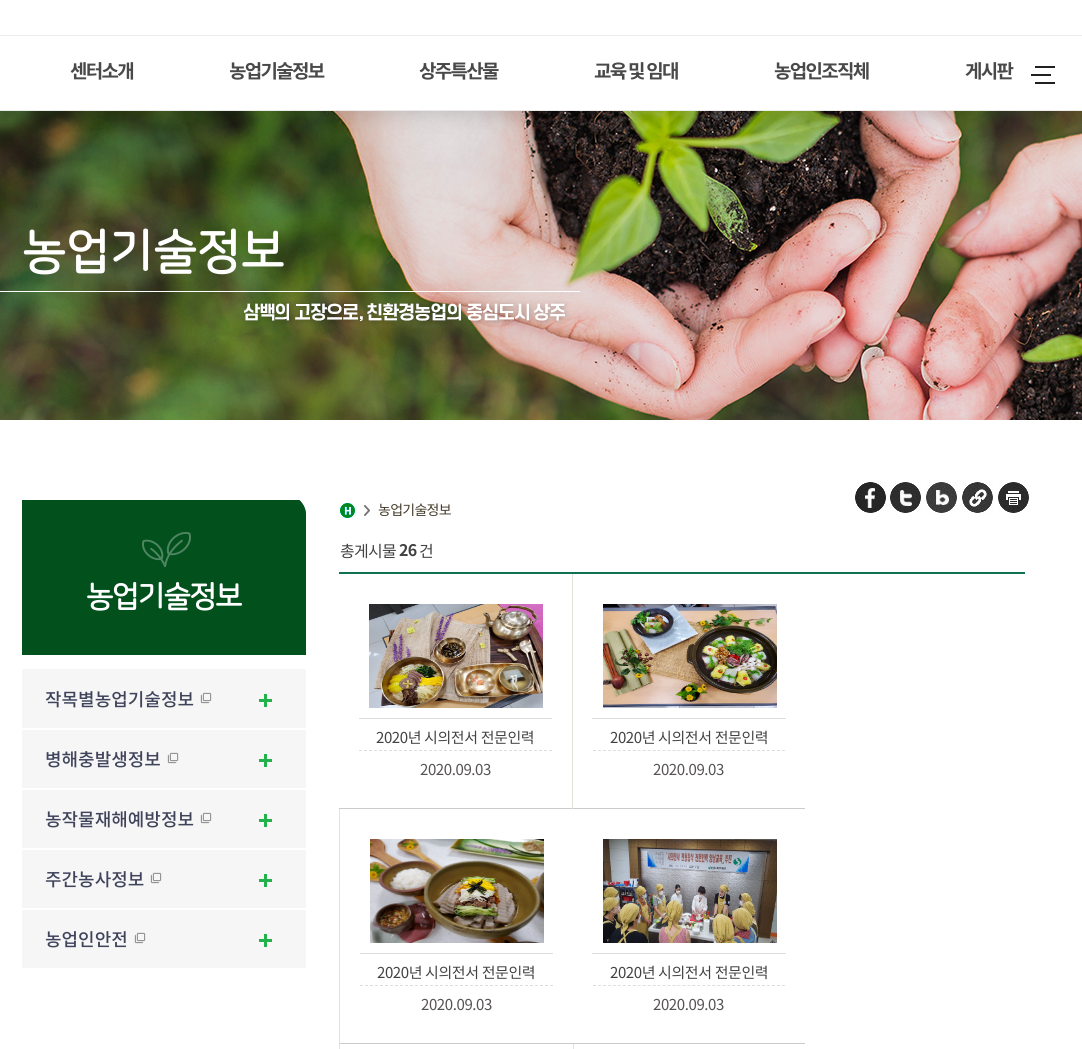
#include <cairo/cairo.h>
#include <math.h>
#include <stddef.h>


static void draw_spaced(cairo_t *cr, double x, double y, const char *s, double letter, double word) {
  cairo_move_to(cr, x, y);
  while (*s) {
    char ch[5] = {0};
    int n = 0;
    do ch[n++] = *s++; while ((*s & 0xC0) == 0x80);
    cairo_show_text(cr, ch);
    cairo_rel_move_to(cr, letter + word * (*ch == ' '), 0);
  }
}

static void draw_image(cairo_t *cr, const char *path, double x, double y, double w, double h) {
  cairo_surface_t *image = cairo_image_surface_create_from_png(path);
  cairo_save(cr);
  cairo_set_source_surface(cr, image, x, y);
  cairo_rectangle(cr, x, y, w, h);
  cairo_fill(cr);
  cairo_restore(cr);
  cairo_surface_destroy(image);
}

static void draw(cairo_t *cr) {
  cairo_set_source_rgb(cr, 1, 1, 1);
  cairo_paint(cr);
  cairo_set_source_rgb(cr, 235 / 255.0, 235 / 255.0, 235 / 255.0);
  cairo_rectangle(cr, 0, 35, 1082, 1);
  cairo_fill(cr);
  cairo_rectangle(cr, 0, 110, 1082, 1);
  cairo_fill(cr);
  draw_image(cr, "images/1.png", 1031, 66, 24, 18);
  draw_image(cr, "images/2.png", 0, 111, 1082, 309);
  draw_image(cr, "images/3.png", 855, 482, 31, 31);
  draw_image(cr, "images/4.png", 890, 482, 31, 31);
  draw_image(cr, "images/5.png", 926, 482, 31, 31);
  draw_image(cr, "images/6.png", 962, 482, 31, 31);
  draw_image(cr, "images/7.png", 998, 482, 31, 31);
  draw_image(cr, "images/8.png", 22, 500, 284, 155);
  cairo_set_source_rgb(cr, 246 / 255.0, 246 / 255.0, 246 / 255.0);
  cairo_rectangle(cr, 25, 670, 278, 55);
  cairo_fill(cr);
  draw_image(cr, "images/9.png", 259, 694, 13, 13);
  cairo_rectangle(cr, 22, 669, 284, 1);
  cairo_fill(cr);
  cairo_rectangle(cr, 303, 669, 3, 59);
  cairo_fill(cr);
  cairo_rectangle(cr, 22, 725, 284, 3);
  cairo_fill(cr);
  cairo_rectangle(cr, 22, 669, 3, 59);
  cairo_fill(cr);
  draw_image(cr, "images/10.png", 200, 692, 12, 12);
  cairo_rectangle(cr, 22, 730, 284, 58);
  cairo_fill(cr);
  draw_image(cr, "images/9.png", 259, 754, 13, 13);
  draw_image(cr, "images/10.png", 167, 752, 12, 12);
  cairo_rectangle(cr, 22, 790, 284, 58);
  cairo_fill(cr);
  draw_image(cr, "images/9.png", 259, 814, 13, 13);
  draw_image(cr, "images/10.png", 200, 812, 12, 12);
  cairo_rectangle(cr, 22, 850, 284, 58);
  cairo_fill(cr);
  draw_image(cr, "images/9.png", 259, 874, 13, 13);
  draw_image(cr, "images/10.png", 150, 872, 12, 12);
  cairo_rectangle(cr, 22, 910, 284, 58);
  cairo_fill(cr);
  draw_image(cr, "images/9.png", 259, 934, 13, 13);
  draw_image(cr, "images/10.png", 134, 932, 12, 12);
  draw_image(cr, "images/11.png", 340, 503, 15, 15);
  draw_image(cr, "images/12.png", 364, 505, 6, 11);
  cairo_set_source_rgb(cr, 15 / 255.0, 114 / 255.0, 83 / 255.0);
  cairo_rectangle(cr, 339, 572, 686, 2);
  cairo_fill(cr);
  cairo_set_source_rgb(cr, 203 / 255.0, 203 / 255.0, 203 / 255.0);
  cairo_rectangle(cr, 339, 808, 466, 1);
  cairo_fill(cr);
  cairo_set_source_rgb(cr, 222 / 255.0, 222 / 255.0, 222 / 255.0);
  cairo_rectangle(cr, 359, 718, 193, 1);
  cairo_fill(cr);
  draw_image(cr, "images/13.png", 369, 604, 174, 104);
  cairo_new_path(cr);
  cairo_move_to(cr, 359, 750.5);
  cairo_line_to(cr, 552, 750.5);
  cairo_set_line_width(cr, 1);
  cairo_set_dash(cr, (double[]){3, 2}, 2, 0);
  cairo_stroke(cr);
  cairo_set_source_rgb(cr, 227 / 255.0, 226 / 255.0, 220 / 255.0);
  cairo_rectangle(cr, 572, 574, 1, 235);
  cairo_fill(cr);
  cairo_set_source_rgb(cr, 222 / 255.0, 222 / 255.0, 222 / 255.0);
  cairo_rectangle(cr, 592, 718, 194, 1);
  cairo_fill(cr);
  draw_image(cr, "images/14.png", 603, 604, 174, 104);
  cairo_new_path(cr);
  cairo_move_to(cr, 593, 750.5);
  cairo_line_to(cr, 785, 750.5);
  cairo_set_dash(cr, (double[]){3, 1.97}, 2, 0);
  cairo_stroke(cr);
  cairo_set_source_rgb(cr, 203 / 255.0, 203 / 255.0, 203 / 255.0);
  cairo_rectangle(cr, 339, 1043, 466, 1);
  cairo_fill(cr);
  cairo_set_source_rgb(cr, 227 / 255.0, 226 / 255.0, 220 / 255.0);
  cairo_rectangle(cr, 339, 809, 1, 240);
  cairo_fill(cr);
  cairo_set_source_rgb(cr, 222 / 255.0, 222 / 255.0, 222 / 255.0);
  cairo_rectangle(cr, 360, 953, 193, 1);
  cairo_fill(cr);
  draw_image(cr, "images/15.png", 370, 839, 174, 104);
  cairo_new_path(cr);
  cairo_move_to(cr, 360, 985.5);
  cairo_line_to(cr, 553, 985.5);
  cairo_set_dash(cr, (double[]){3, 2}, 2, 0);
  cairo_stroke(cr);
  cairo_rectangle(cr, 592, 953, 194, 1);
  cairo_fill(cr);
  draw_image(cr, "images/16.png", 603, 839, 174, 104);
  cairo_new_path(cr);
  cairo_move_to(cr, 593, 985.5);
  cairo_line_to(cr, 785, 985.5);
  cairo_set_dash(cr, (double[]){3, 1.97}, 2, 0);
  cairo_stroke(cr);
  cairo_set_source_rgb(cr, 227 / 255.0, 226 / 255.0, 220 / 255.0);
  cairo_rectangle(cr, 573, 1044, 1, 5);
  cairo_fill(cr);
  cairo_select_font_face(cr, "Noto Sans KR", CAIRO_FONT_SLANT_NORMAL, CAIRO_FONT_WEIGHT_BOLD);
  cairo_set_font_size(cr, 19);
  cairo_set_source_rgb(cr, 74 / 255.0, 73 / 255.0, 73 / 255.0);
  draw_spaced(cr, 70, 78, "센터소개", -1.75, 0);
  draw_spaced(cr, 229, 78, "농업기술정보", -1.75, 0);
  cairo_set_source_rgb(cr, 1, 1, 1);
  cairo_rectangle(cr, 229, 70, 1, 3);
  cairo_fill(cr);
  cairo_set_source_rgb(cr, 74 / 255.0, 73 / 255.0, 73 / 255.0);
  draw_spaced(cr, 419, 78, "상주특산물", -1.75, 0);
  draw_spaced(cr, 594, 78, "교육 및 임대", -1.75, 0);
  draw_spaced(cr, 774, 78, "농업인조직체", -1.75, 0);
  draw_spaced(cr, 965, 78, "게시판", -1.75, 0);
  cairo_select_font_face(cr, "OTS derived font", CAIRO_FONT_SLANT_NORMAL, CAIRO_FONT_WEIGHT_BOLD);
  cairo_set_font_size(cr, 48);
  cairo_set_source_rgb(cr, 1, 1, 1);
  cairo_move_to(cr, 22, 267);
  cairo_show_text(cr, "농업기술정보");
  cairo_set_font_size(cr, 30);
  draw_spaced(cr, 86, 606, "농업기술정보", -1.5, 0);
  cairo_select_font_face(cr, "Noto Sans KR Medium", CAIRO_FONT_SLANT_NORMAL, CAIRO_FONT_WEIGHT_NORMAL);
  cairo_set_font_size(cr, 18);
  cairo_set_source_rgb(cr, 63 / 255.0, 68 / 255.0, 91 / 255.0);
  cairo_move_to(cr, 45, 706);
  cairo_show_text(cr, "작목별농업기술정보");
  cairo_move_to(cr, 45, 766);
  cairo_show_text(cr, "병해충발생정보");
  cairo_move_to(cr, 45, 826);
  cairo_show_text(cr, "농작물재해예방정보");
  cairo_move_to(cr, 45, 886);
  cairo_show_text(cr, "주간농사정보");
  cairo_move_to(cr, 45, 946);
  cairo_show_text(cr, "농업인안전");
  cairo_select_font_face(cr, "Noto Sans KR", CAIRO_FONT_SLANT_NORMAL, CAIRO_FONT_WEIGHT_NORMAL);
  cairo_set_font_size(cr, 14);
  cairo_set_source_rgb(cr, 66 / 255.0, 57 / 255.0, 40 / 255.0);
  draw_spaced(cr, 378, 515, "농업기술정보", -0.75, 0);
  cairo_set_font_size(cr, 16);
  cairo_set_source_rgb(cr, 66 / 255.0, 66 / 255.0, 66 / 255.0);
  draw_spaced(cr, 340, 557, "총게시물", -0.75, 0);
  cairo_select_font_face(cr, "Noto Sans KR", CAIRO_FONT_SLANT_NORMAL, CAIRO_FONT_WEIGHT_BOLD);
  draw_spaced(cr, 399, 556, "26", -0.75, 0);
  cairo_select_font_face(cr, "Noto Sans KR", CAIRO_FONT_SLANT_NORMAL, CAIRO_FONT_WEIGHT_NORMAL);
  draw_spaced(cr, 419, 557, "건", -0.75, 0);
  cairo_set_font_size(cr, 15);
  draw_spaced(cr, 376, 743, "2020년 시의전서 전문인력", -0.4, 0);
  cairo_set_source_rgb(cr, 86 / 255.0, 82 / 255.0, 82 / 255.0);
  draw_spaced(cr, 420, 775, "2020.09.03", -0.4, 0);
  cairo_set_source_rgb(cr, 66 / 255.0, 66 / 255.0, 66 / 255.0);
  draw_spaced(cr, 610, 743, "2020년 시의전서 전문인력", -0.4, 0);
  cairo_set_source_rgb(cr, 86 / 255.0, 82 / 255.0, 82 / 255.0);
  draw_spaced(cr, 653, 775, "2020.09.03", -0.4, 0);
  cairo_set_source_rgb(cr, 66 / 255.0, 66 / 255.0, 66 / 255.0);
  draw_spaced(cr, 377, 978, "2020년 시의전서 전문인력", -0.4, 0);
  cairo_set_source_rgb(cr, 86 / 255.0, 82 / 255.0, 82 / 255.0);
  draw_spaced(cr, 421, 1010, "2020.09.03", -0.4, 0);
  cairo_set_source_rgb(cr, 66 / 255.0, 66 / 255.0, 66 / 255.0);
  draw_spaced(cr, 610, 978, "2020년 시의전서 전문인력", -0.4, 0);
  cairo_set_source_rgb(cr, 86 / 255.0, 82 / 255.0, 82 / 255.0);
  draw_spaced(cr, 653, 1010, "2020.09.03", -0.4, 0);
}

int main(void) {
  cairo_surface_t *surface = cairo_image_surface_create(CAIRO_FORMAT_RGB24, 1082, 1049);
  cairo_t *cr = cairo_create(surface);
  cairo_font_options_t *options = cairo_font_options_create();
  cairo_font_options_set_hint_metrics(options, CAIRO_HINT_METRICS_OFF);
  cairo_font_options_set_hint_style(options, CAIRO_HINT_STYLE_NONE);
  cairo_set_font_options(cr, options);
  cairo_set_miter_limit(cr, 4);
  draw(cr);
  cairo_surface_write_to_png(surface, "out.png");
  cairo_font_options_destroy(options);
  cairo_destroy(cr);
  cairo_surface_destroy(surface);
  return 0;
}
